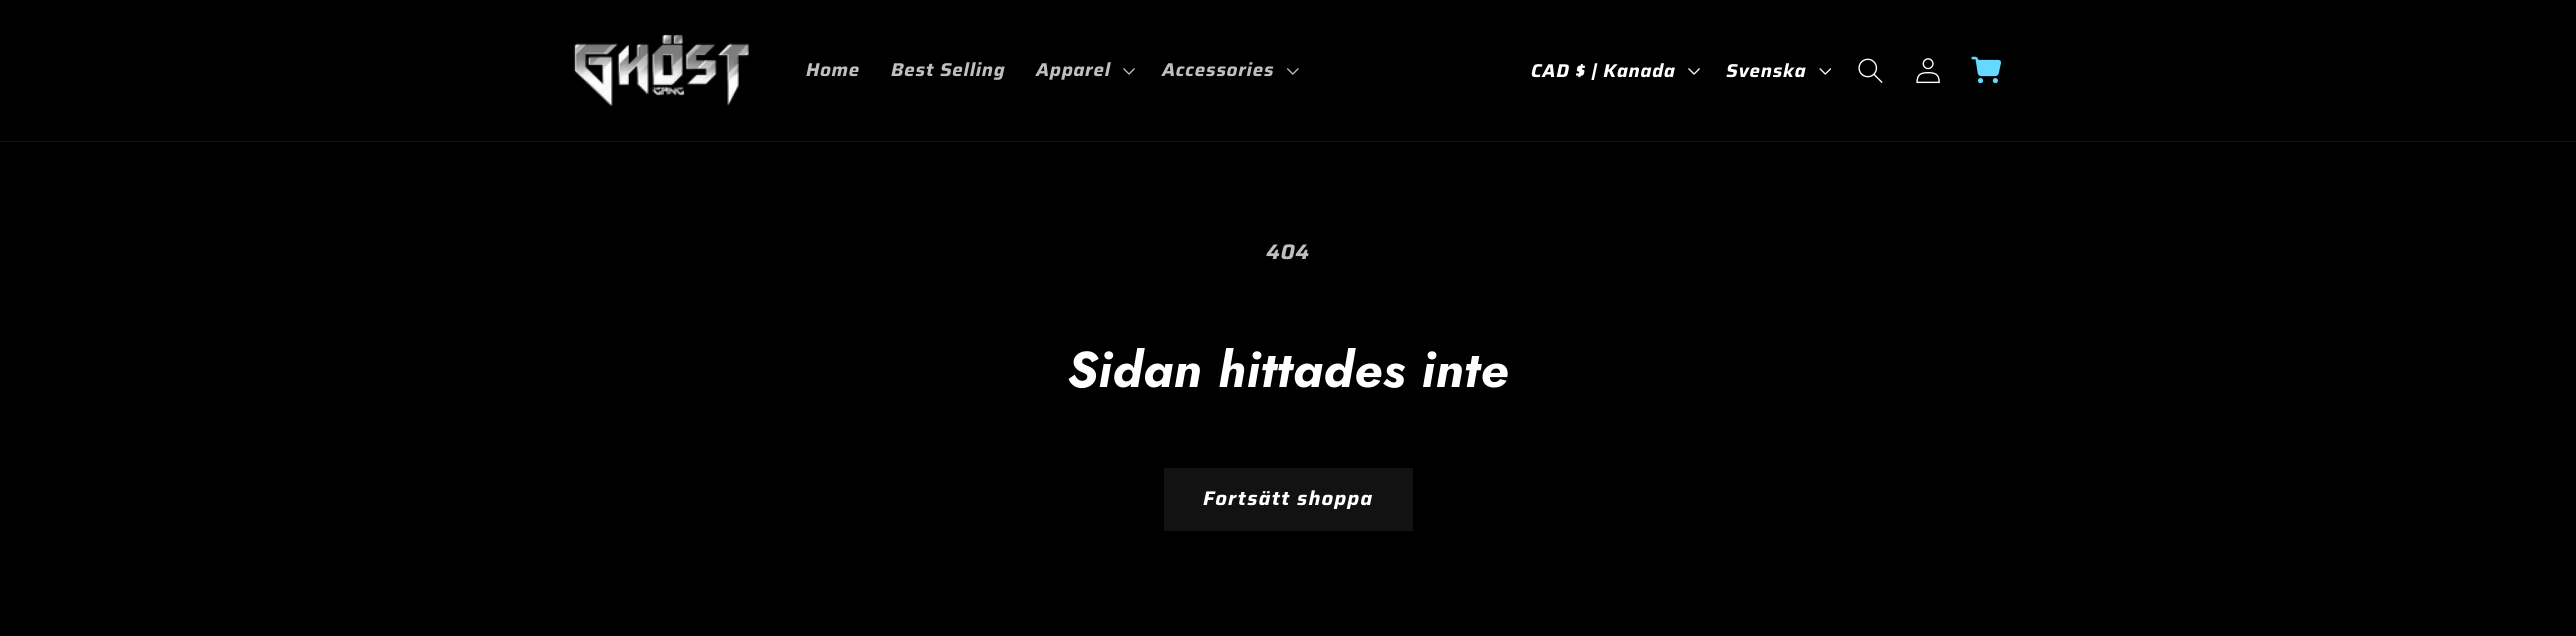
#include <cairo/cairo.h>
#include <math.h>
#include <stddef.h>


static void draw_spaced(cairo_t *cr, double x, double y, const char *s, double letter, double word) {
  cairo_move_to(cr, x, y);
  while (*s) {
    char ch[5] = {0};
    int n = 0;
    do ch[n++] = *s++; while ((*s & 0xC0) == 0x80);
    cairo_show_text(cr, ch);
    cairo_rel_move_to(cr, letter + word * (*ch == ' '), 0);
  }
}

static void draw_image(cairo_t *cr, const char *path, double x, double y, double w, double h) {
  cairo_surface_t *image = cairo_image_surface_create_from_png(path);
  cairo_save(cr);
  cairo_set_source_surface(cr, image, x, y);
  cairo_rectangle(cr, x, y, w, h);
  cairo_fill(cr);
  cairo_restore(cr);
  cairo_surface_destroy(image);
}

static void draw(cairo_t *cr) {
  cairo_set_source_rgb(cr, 0, 0, 0);
  cairo_paint(cr);
  cairo_set_source_rgb(cr, 20 / 255.0, 20 / 255.0, 20 / 255.0);
  cairo_rectangle(cr, 0, 141, 2576, 1);
  cairo_fill(cr);
  draw_image(cr, "images/1.png", 573, 34, 176, 73);
  draw_image(cr, "images/2.png", 1123, 68, 12, 7);
  draw_image(cr, "images/3.png", 1287, 68, 12, 7);
  draw_image(cr, "images/4.png", 1688, 68, 12, 7);
  draw_image(cr, "images/5.png", 1819, 68, 12, 7);
  draw_image(cr, "images/6.png", 1858, 58, 25, 25);
  draw_image(cr, "images/7.png", 1916, 58, 24, 26);
  draw_image(cr, "images/8.png", 1971, 56, 30, 28);
  cairo_set_source_rgb(cr, 18 / 255.0, 18 / 255.0, 18 / 255.0);
  cairo_rectangle(cr, 1164, 468, 249, 63);
  cairo_fill(cr);
  cairo_select_font_face(cr, "Saira", CAIRO_FONT_SLANT_ITALIC, CAIRO_FONT_WEIGHT_BOLD);
  cairo_set_font_size(cr, 18.5);
  cairo_set_source_rgb(cr, 191 / 255.0, 191 / 255.0, 191 / 255.0);
  draw_spaced(cr, 806, 76, "Home", 0.75, 0);
  draw_spaced(cr, 891, 76, "Best Selling", 0.75, 0);
  draw_spaced(cr, 1036, 76, "Apparel", 0.75, 0);
  draw_spaced(cr, 1162, 76, "Accessories", 0.75, 0);
  cairo_set_source_rgb(cr, 1, 1, 1);
  draw_spaced(cr, 1531, 77, "CAD $ | Kanada", 0.75, 0);
  draw_spaced(cr, 1726, 77, "Svenska", 0.75, 0);
  cairo_set_font_size(cr, 21);
  cairo_set_source_rgb(cr, 191 / 255.0, 191 / 255.0, 191 / 255.0);
  draw_spaced(cr, 1266, 259, "404", 0.75, 0);
  cairo_select_font_face(cr, "Jost", CAIRO_FONT_SLANT_ITALIC, CAIRO_FONT_WEIGHT_BOLD);
  cairo_set_font_size(cr, 50);
  cairo_set_source_rgb(cr, 1, 1, 1);
  draw_spaced(cr, 1067, 387, "Sidan hittades inte", 0.75, 0);
  cairo_select_font_face(cr, "Saira", CAIRO_FONT_SLANT_ITALIC, CAIRO_FONT_WEIGHT_BOLD);
  cairo_set_font_size(cr, 19.75);
  draw_spaced(cr, 1203, 505, "Fortsätt shoppa", 1.25, 0);
}

int main(void) {
  cairo_surface_t *surface = cairo_image_surface_create(CAIRO_FORMAT_RGB24, 2576, 636);
  cairo_t *cr = cairo_create(surface);
  cairo_font_options_t *options = cairo_font_options_create();
  cairo_font_options_set_hint_metrics(options, CAIRO_HINT_METRICS_OFF);
  cairo_font_options_set_hint_style(options, CAIRO_HINT_STYLE_NONE);
  cairo_set_font_options(cr, options);
  cairo_set_miter_limit(cr, 4);
  draw(cr);
  cairo_surface_write_to_png(surface, "out.png");
  cairo_font_options_destroy(options);
  cairo_destroy(cr);
  cairo_surface_destroy(surface);
  return 0;
}
